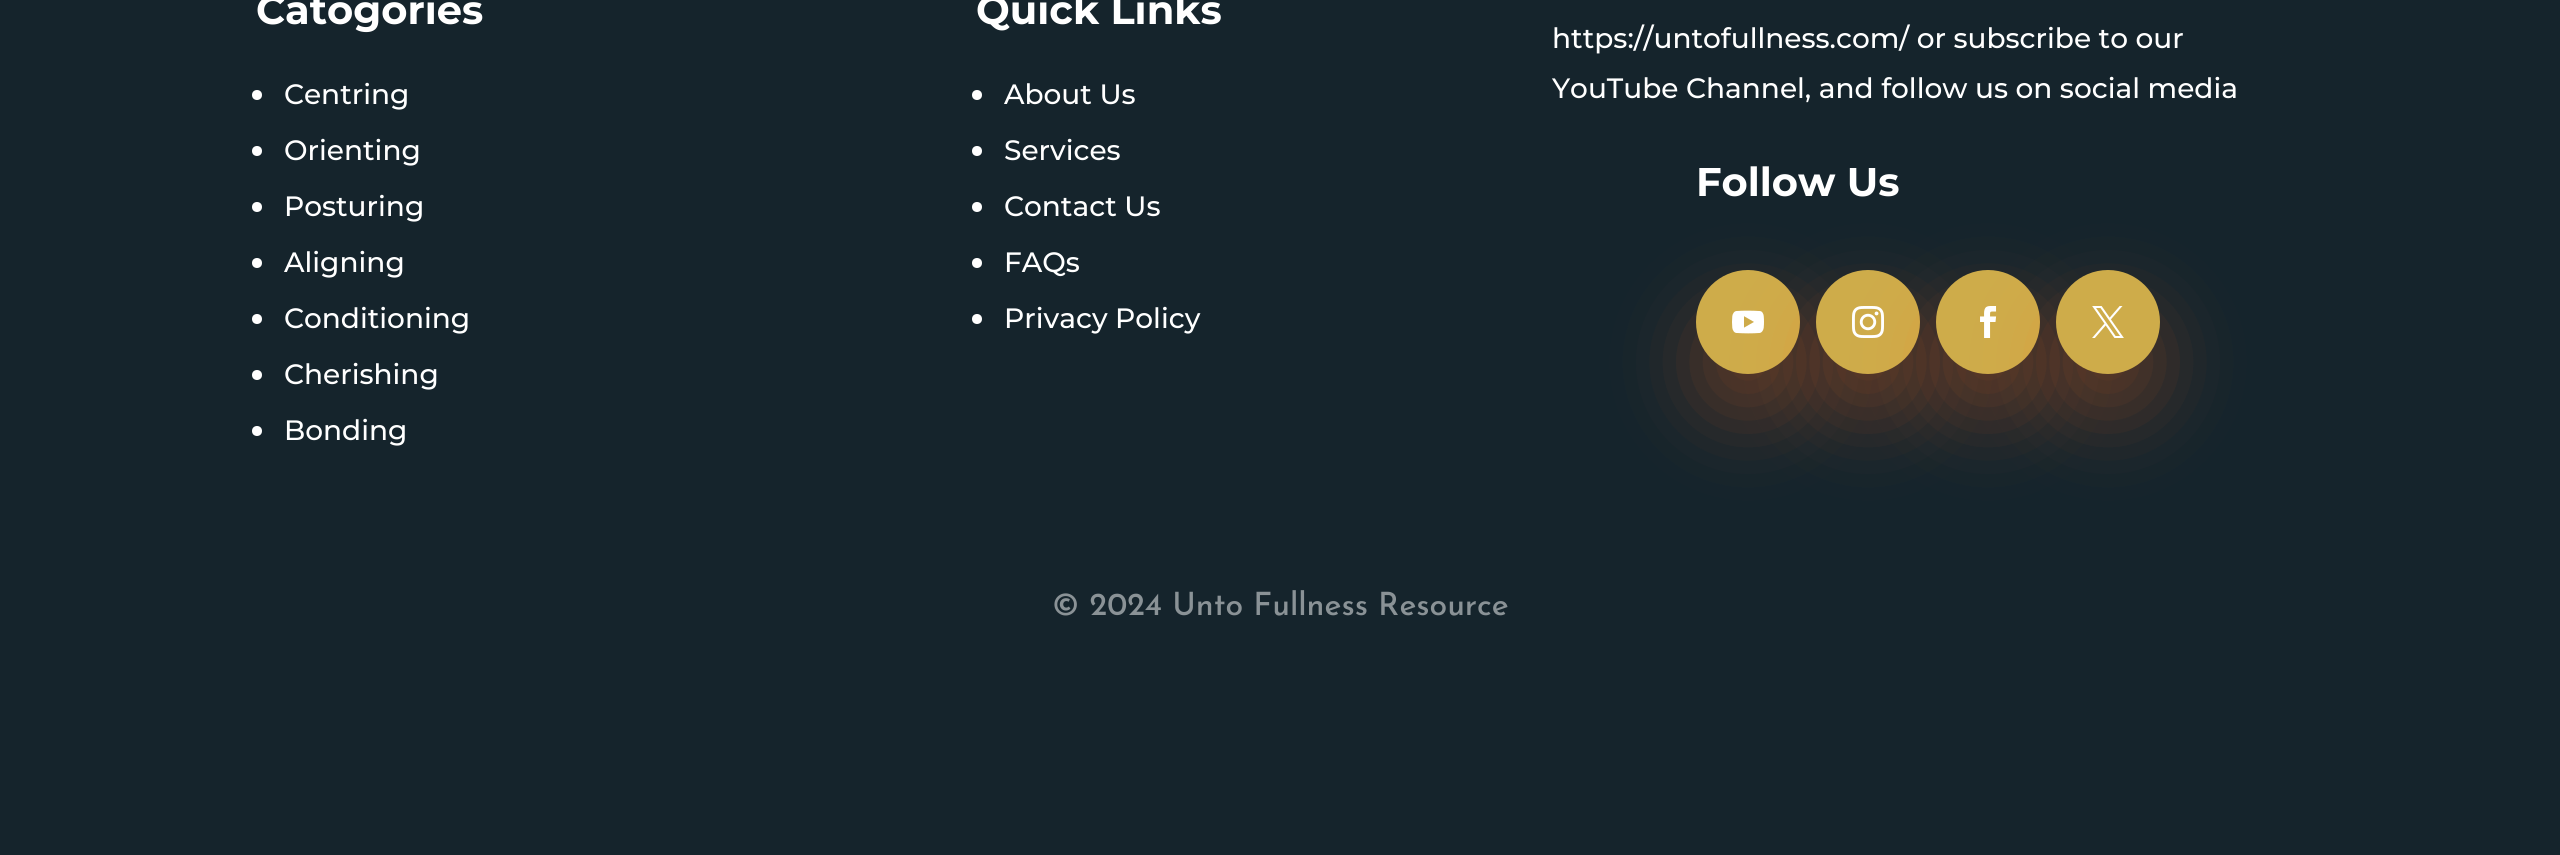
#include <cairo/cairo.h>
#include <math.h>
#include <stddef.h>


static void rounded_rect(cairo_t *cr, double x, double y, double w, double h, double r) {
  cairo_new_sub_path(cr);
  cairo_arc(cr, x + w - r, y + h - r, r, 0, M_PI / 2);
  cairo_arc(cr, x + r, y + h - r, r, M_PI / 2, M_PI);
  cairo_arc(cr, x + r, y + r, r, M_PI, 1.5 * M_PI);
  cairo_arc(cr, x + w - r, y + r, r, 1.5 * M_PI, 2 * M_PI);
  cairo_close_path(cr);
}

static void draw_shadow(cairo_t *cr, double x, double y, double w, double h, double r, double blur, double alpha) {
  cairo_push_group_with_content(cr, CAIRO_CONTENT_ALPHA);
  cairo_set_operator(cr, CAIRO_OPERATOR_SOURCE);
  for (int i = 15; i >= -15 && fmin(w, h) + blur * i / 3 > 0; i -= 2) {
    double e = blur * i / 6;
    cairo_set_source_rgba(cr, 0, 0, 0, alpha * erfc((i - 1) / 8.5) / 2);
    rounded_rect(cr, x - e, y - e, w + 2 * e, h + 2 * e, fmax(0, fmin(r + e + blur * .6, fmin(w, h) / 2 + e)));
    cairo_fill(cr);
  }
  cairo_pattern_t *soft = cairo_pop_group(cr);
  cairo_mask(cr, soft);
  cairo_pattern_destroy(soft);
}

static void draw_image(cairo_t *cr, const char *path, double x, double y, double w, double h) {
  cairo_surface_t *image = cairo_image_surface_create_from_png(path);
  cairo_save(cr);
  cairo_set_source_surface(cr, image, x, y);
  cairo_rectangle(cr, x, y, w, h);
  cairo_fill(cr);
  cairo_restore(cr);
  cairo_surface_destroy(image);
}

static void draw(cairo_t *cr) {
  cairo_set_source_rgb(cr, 21 / 255.0, 36 / 255.0, 44 / 255.0);
  cairo_paint(cr);
  cairo_set_source_rgb(cr, 1, 1, 1);
  cairo_arc(cr, 257, 95, 5, 0, 2 * M_PI);
  cairo_fill(cr);
  cairo_arc(cr, 257, 151, 5, 0, 2 * M_PI);
  cairo_fill(cr);
  cairo_arc(cr, 257, 207, 5, 0, 2 * M_PI);
  cairo_fill(cr);
  cairo_arc(cr, 257, 263, 5, 0, 2 * M_PI);
  cairo_fill(cr);
  cairo_arc(cr, 257, 319, 5, 0, 2 * M_PI);
  cairo_fill(cr);
  cairo_arc(cr, 257, 375, 5, 0, 2 * M_PI);
  cairo_fill(cr);
  cairo_arc(cr, 257, 431, 5, 0, 2 * M_PI);
  cairo_fill(cr);
  cairo_arc(cr, 977, 95, 5, 0, 2 * M_PI);
  cairo_fill(cr);
  cairo_arc(cr, 977, 151, 5, 0, 2 * M_PI);
  cairo_fill(cr);
  cairo_arc(cr, 977, 207, 5, 0, 2 * M_PI);
  cairo_fill(cr);
  cairo_arc(cr, 977, 263, 5, 0, 2 * M_PI);
  cairo_fill(cr);
  cairo_arc(cr, 977, 319, 5, 0, 2 * M_PI);
  cairo_fill(cr);
  cairo_set_source_rgb(cr, 1, 104 / 255.0, 25 / 255.0);
  draw_shadow(cr, 1696, 310, 104, 104, 52, 40, 0.3);
  cairo_set_source_rgb(cr, 206 / 255.0, 172 / 255.0, 74 / 255.0);
  cairo_arc(cr, 1748, 322, 52, 0, 2 * M_PI);
  cairo_fill(cr);
  cairo_set_source_rgb(cr, 1, 104 / 255.0, 25 / 255.0);
  draw_shadow(cr, 1816, 310, 104, 104, 52, 40, 0.3);
  draw_image(cr, "images/1.png", 1732, 310, 32, 24);
  cairo_set_source_rgb(cr, 206 / 255.0, 172 / 255.0, 74 / 255.0);
  cairo_arc(cr, 1868, 322, 52, 0, 2 * M_PI);
  cairo_fill(cr);
  cairo_set_source_rgb(cr, 1, 104 / 255.0, 25 / 255.0);
  draw_shadow(cr, 1936, 310, 104, 104, 52, 40, 0.3);
  draw_image(cr, "images/2.png", 1852, 306, 32, 32);
  cairo_set_source_rgb(cr, 206 / 255.0, 172 / 255.0, 74 / 255.0);
  cairo_arc(cr, 1988, 322, 52, 0, 2 * M_PI);
  cairo_fill(cr);
  cairo_set_source_rgb(cr, 1, 104 / 255.0, 25 / 255.0);
  draw_shadow(cr, 2056, 310, 104, 104, 52, 40, 0.3);
  draw_image(cr, "images/3.png", 1980, 306, 17, 32);
  cairo_set_source_rgb(cr, 206 / 255.0, 172 / 255.0, 74 / 255.0);
  cairo_arc(cr, 2108, 322, 52, 0, 2 * M_PI);
  cairo_fill(cr);
  draw_image(cr, "images/4.png", 2092, 306, 32, 32);
  cairo_select_font_face(cr, "Montserrat", CAIRO_FONT_SLANT_NORMAL, CAIRO_FONT_WEIGHT_BOLD);
  cairo_set_font_size(cr, 40);
  cairo_set_source_rgb(cr, 1, 1, 1);
  cairo_move_to(cr, 256, 24);
  cairo_show_text(cr, "Catogories");
  cairo_select_font_face(cr, "Montserrat Medium", CAIRO_FONT_SLANT_NORMAL, CAIRO_FONT_WEIGHT_NORMAL);
  cairo_set_font_size(cr, 28);
  cairo_move_to(cr, 284, 104);
  cairo_show_text(cr, "Centring");
  cairo_move_to(cr, 284, 160);
  cairo_show_text(cr, "Orienting");
  cairo_move_to(cr, 284, 216);
  cairo_show_text(cr, "Posturing");
  cairo_move_to(cr, 284, 272);
  cairo_show_text(cr, "Aligning");
  cairo_move_to(cr, 284, 328);
  cairo_show_text(cr, "Conditioning");
  cairo_move_to(cr, 284, 384);
  cairo_show_text(cr, "Cherishing");
  cairo_move_to(cr, 284, 440);
  cairo_show_text(cr, "Bonding");
  cairo_select_font_face(cr, "Montserrat", CAIRO_FONT_SLANT_NORMAL, CAIRO_FONT_WEIGHT_BOLD);
  cairo_set_font_size(cr, 40);
  cairo_move_to(cr, 976, 24);
  cairo_show_text(cr, "Quick Links");
  cairo_select_font_face(cr, "Montserrat Medium", CAIRO_FONT_SLANT_NORMAL, CAIRO_FONT_WEIGHT_NORMAL);
  cairo_set_font_size(cr, 28);
  cairo_move_to(cr, 1004, 104);
  cairo_show_text(cr, "About Us");
  cairo_move_to(cr, 1004, 160);
  cairo_show_text(cr, "Services");
  cairo_move_to(cr, 1004, 216);
  cairo_show_text(cr, "Contact Us");
  cairo_move_to(cr, 1004, 272);
  cairo_show_text(cr, "FAQs");
  cairo_move_to(cr, 1004, 328);
  cairo_show_text(cr, "Privacy Policy");
  cairo_select_font_face(cr, "Montserrat", CAIRO_FONT_SLANT_NORMAL, CAIRO_FONT_WEIGHT_BOLD);
  cairo_set_font_size(cr, 40);
  cairo_move_to(cr, 1696, 196);
  cairo_show_text(cr, "Follow Us");
  cairo_select_font_face(cr, "Montserrat Medium", CAIRO_FONT_SLANT_NORMAL, CAIRO_FONT_WEIGHT_NORMAL);
  cairo_set_font_size(cr, 28);
  cairo_move_to(cr, 1552, 48);
  cairo_show_text(cr, "https://untofullness.com/ or subscribe to our");
  cairo_move_to(cr, 1552, 98);
  cairo_show_text(cr, "YouTube Channel, and follow us on social media");
  cairo_select_font_face(cr, "Josefin Sans Medium", CAIRO_FONT_SLANT_NORMAL, CAIRO_FONT_WEIGHT_NORMAL);
  cairo_set_font_size(cr, 32);
  cairo_set_source_rgb(cr, 138 / 255.0, 146 / 255.0, 150 / 255.0);
  cairo_move_to(cr, 1052, 615);
  cairo_show_text(cr, "© 2024 Unto Fullness Resource");
}

int main(void) {
  cairo_surface_t *surface = cairo_image_surface_create(CAIRO_FORMAT_RGB24, 2560, 855);
  cairo_t *cr = cairo_create(surface);
  cairo_font_options_t *options = cairo_font_options_create();
  cairo_font_options_set_hint_metrics(options, CAIRO_HINT_METRICS_OFF);
  cairo_font_options_set_hint_style(options, CAIRO_HINT_STYLE_NONE);
  cairo_set_font_options(cr, options);
  cairo_set_miter_limit(cr, 4);
  draw(cr);
  cairo_surface_write_to_png(surface, "out.png");
  cairo_font_options_destroy(options);
  cairo_destroy(cr);
  cairo_surface_destroy(surface);
  return 0;
}
